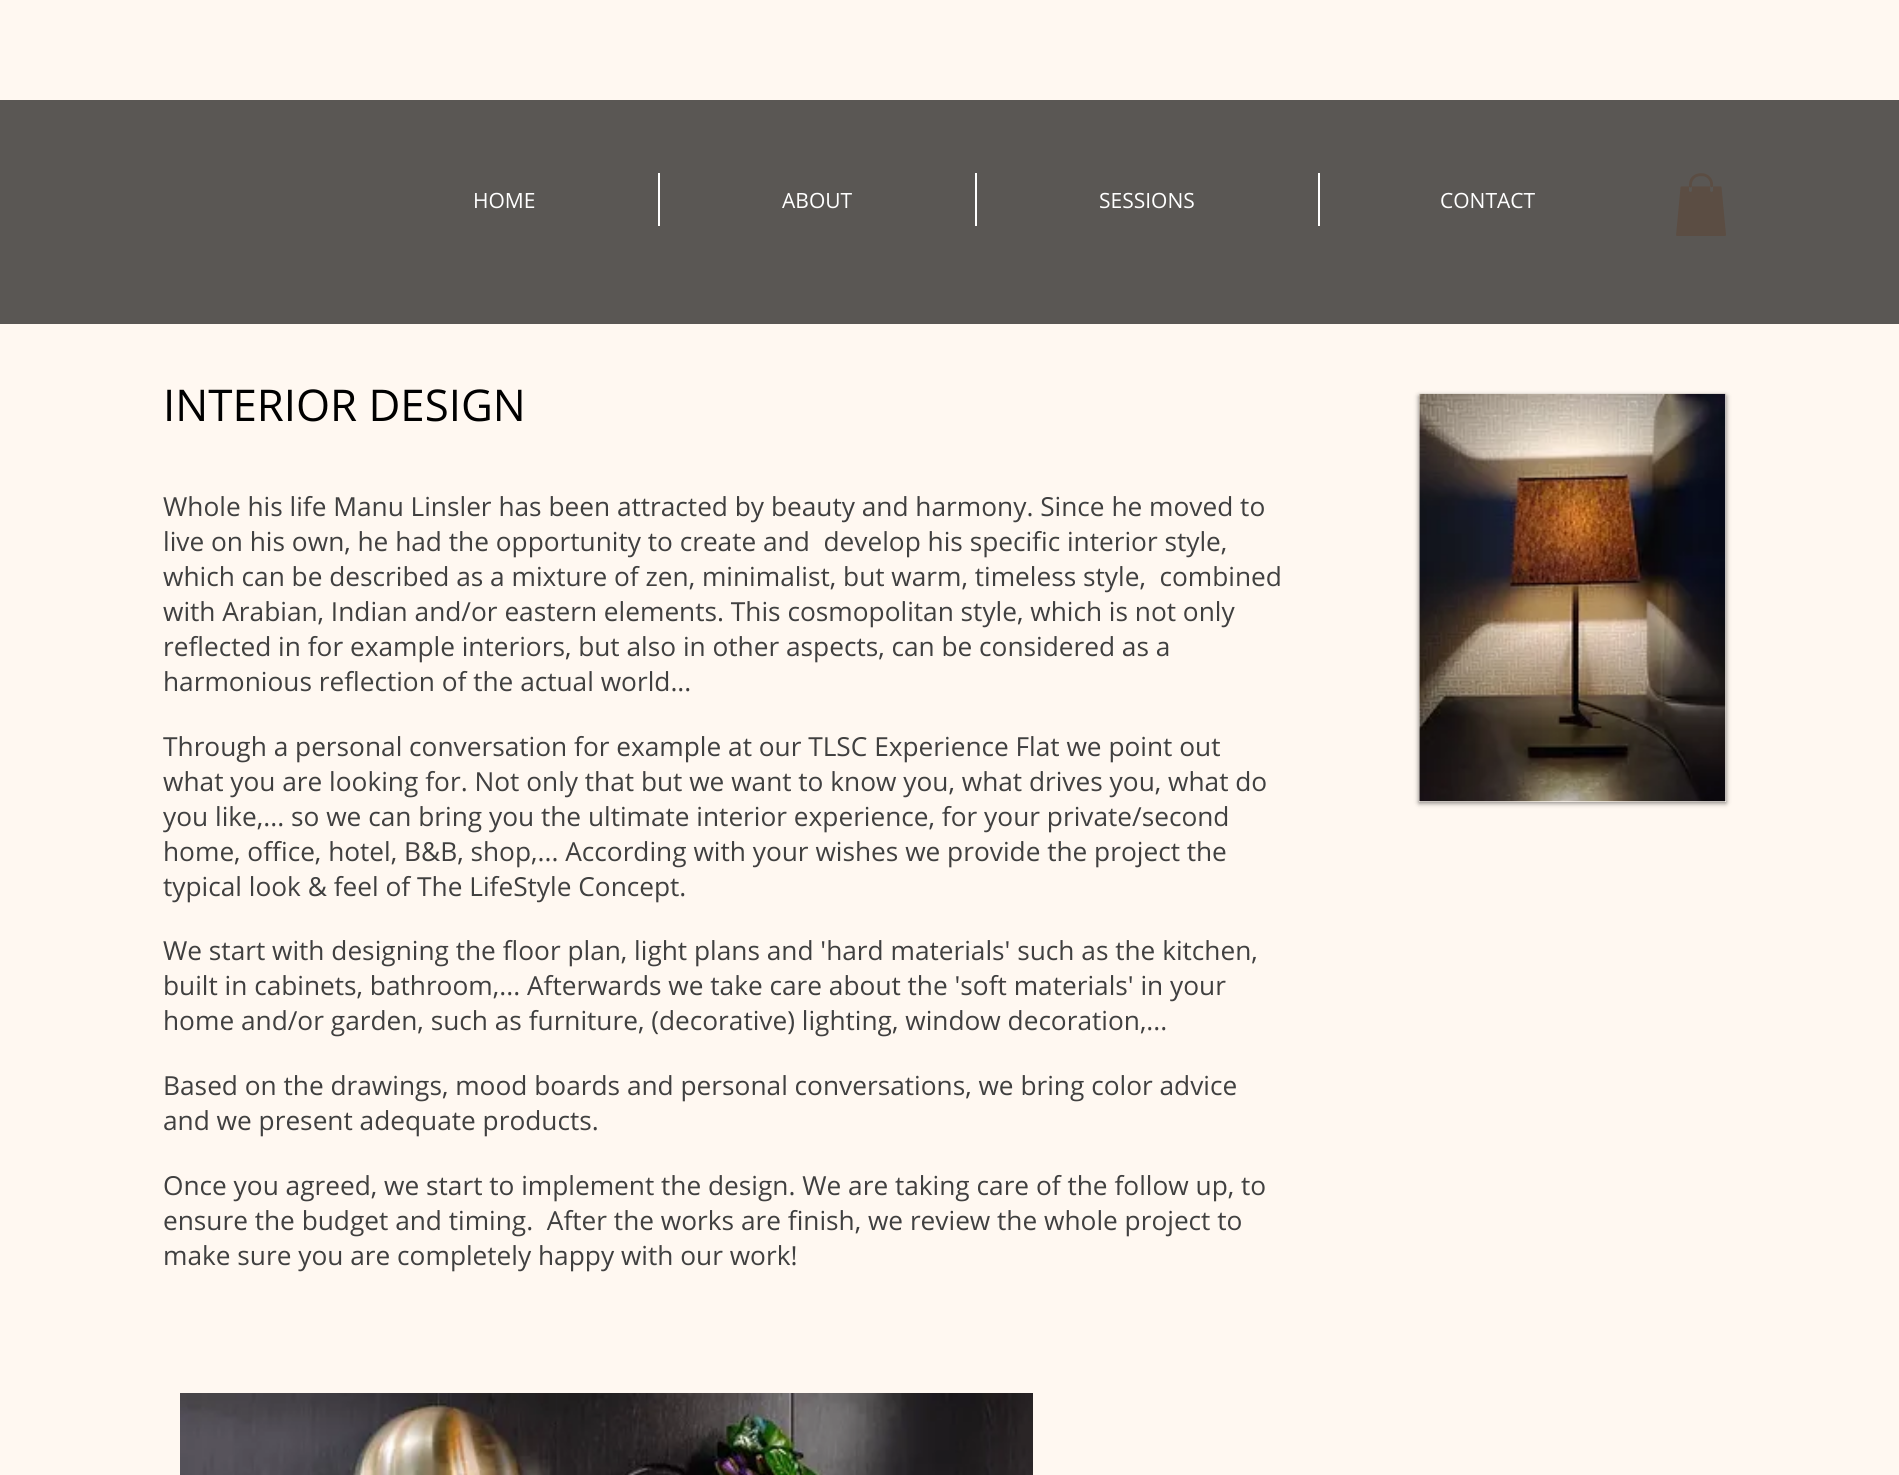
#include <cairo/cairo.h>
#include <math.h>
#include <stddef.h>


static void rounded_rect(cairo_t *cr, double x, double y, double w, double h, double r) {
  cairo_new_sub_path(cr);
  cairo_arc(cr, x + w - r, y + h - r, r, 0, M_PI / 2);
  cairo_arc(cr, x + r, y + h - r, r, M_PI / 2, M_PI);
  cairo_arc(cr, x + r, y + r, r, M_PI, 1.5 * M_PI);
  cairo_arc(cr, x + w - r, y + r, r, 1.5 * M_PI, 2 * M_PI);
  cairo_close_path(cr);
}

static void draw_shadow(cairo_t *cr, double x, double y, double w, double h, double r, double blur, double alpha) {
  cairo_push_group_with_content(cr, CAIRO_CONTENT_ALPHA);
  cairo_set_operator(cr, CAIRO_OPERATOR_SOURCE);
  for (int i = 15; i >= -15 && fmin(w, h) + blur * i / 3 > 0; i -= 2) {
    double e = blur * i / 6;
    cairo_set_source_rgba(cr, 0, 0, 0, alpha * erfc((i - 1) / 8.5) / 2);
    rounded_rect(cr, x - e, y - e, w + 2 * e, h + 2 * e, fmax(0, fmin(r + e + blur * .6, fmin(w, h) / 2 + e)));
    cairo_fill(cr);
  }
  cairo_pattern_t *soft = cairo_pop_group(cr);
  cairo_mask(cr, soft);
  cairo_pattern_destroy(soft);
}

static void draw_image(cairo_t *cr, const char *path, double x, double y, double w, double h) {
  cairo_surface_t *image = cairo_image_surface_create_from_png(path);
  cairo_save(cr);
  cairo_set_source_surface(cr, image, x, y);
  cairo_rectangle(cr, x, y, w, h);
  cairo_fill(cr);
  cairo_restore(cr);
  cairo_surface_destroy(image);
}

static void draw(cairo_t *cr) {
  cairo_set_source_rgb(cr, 1, 248 / 255.0, 241 / 255.0);
  cairo_paint(cr);
  cairo_set_source_rgb(cr, 90 / 255.0, 87 / 255.0, 84 / 255.0);
  cairo_rectangle(cr, 0, 100, 1899, 224);
  cairo_fill(cr);
  cairo_set_source_rgb(cr, 1, 1, 1);
  cairo_rectangle(cr, 658, 173, 2, 53);
  cairo_fill(cr);
  cairo_rectangle(cr, 975, 173, 2, 53);
  cairo_fill(cr);
  cairo_rectangle(cr, 1318, 173, 2, 53);
  cairo_fill(cr);
  draw_image(cr, "images/1.png", 1676, 173, 50, 63);
  cairo_set_source_rgb(cr, 0, 0, 0);
  draw_shadow(cr, 1419, 396, 307, 407, 0, 2.5, 0.5);
  cairo_set_source_rgb(cr, 1, 248 / 255.0, 241 / 255.0);
  cairo_rectangle(cr, 1419, 394, 307, 408);
  cairo_fill(cr);
  draw_image(cr, "images/2.png", 1419, 393, 307, 409);
  draw_image(cr, "images/3.png", 180, 1393, 853, 82);
  cairo_select_font_face(cr, "Open Sans", CAIRO_FONT_SLANT_NORMAL, CAIRO_FONT_WEIGHT_NORMAL);
  cairo_set_font_size(cr, 21);
  cairo_set_source_rgb(cr, 1, 1, 1);
  cairo_move_to(cr, 473, 208);
  cairo_show_text(cr, "HOME");
  cairo_move_to(cr, 782, 208);
  cairo_show_text(cr, "ABOUT");
  cairo_move_to(cr, 1099, 208);
  cairo_show_text(cr, "SESSIONS");
  cairo_move_to(cr, 1440, 208);
  cairo_show_text(cr, "CONTACT");
  cairo_set_font_size(cr, 43.75);
  cairo_set_source_rgb(cr, 0, 0, 0);
  cairo_move_to(cr, 163, 421);
  cairo_show_text(cr, "INTERIOR DESIGN");
  cairo_set_font_size(cr, 26.25);
  cairo_set_source_rgb(cr, 64 / 255.0, 64 / 255.0, 64 / 255.0);
  cairo_move_to(cr, 163, 516);
  cairo_show_text(cr, "Whole his life Manu Linsler has been attracted by beauty and harmony. Since he moved to");
  cairo_move_to(cr, 163, 551);
  cairo_show_text(cr, "live on his own, he had the opportunity to create and  develop his specific interior style,");
  cairo_move_to(cr, 163, 586);
  cairo_show_text(cr, "which can be described as a mixture of zen, minimalist, but warm, timeless style,  combined");
  cairo_move_to(cr, 163, 621);
  cairo_show_text(cr, "with Arabian, Indian and/or eastern elements. This cosmopolitan style, which is not only");
  cairo_move_to(cr, 163, 656);
  cairo_show_text(cr, "reflected in for example interiors, but also in other aspects, can be considered as a");
  cairo_move_to(cr, 163, 691);
  cairo_show_text(cr, "harmonious reflection of the actual world...");
  cairo_move_to(cr, 163, 756);
  cairo_show_text(cr, "Through a personal conversation for example at our TLSC Experience Flat we point out");
  cairo_move_to(cr, 163, 791);
  cairo_show_text(cr, "what you are looking for. Not only that but we want to know you, what drives you, what do");
  cairo_move_to(cr, 163, 826);
  cairo_show_text(cr, "you like,... so we can bring you the ultimate interior experience, for your private/second");
  cairo_move_to(cr, 163, 861);
  cairo_show_text(cr, "home, office, hotel, B&B, shop,... According with your wishes we provide the project the");
  cairo_move_to(cr, 163, 896);
  cairo_show_text(cr, "typical look & feel of The LifeStyle Concept.");
  cairo_move_to(cr, 163, 960);
  cairo_show_text(cr, "We start with designing the floor plan, light plans and 'hard materials' such as the kitchen,");
  cairo_move_to(cr, 163, 995);
  cairo_show_text(cr, "built in cabinets, bathroom,... Afterwards we take care about the 'soft materials' in your");
  cairo_move_to(cr, 163, 1030);
  cairo_show_text(cr, "home and/or garden, such as furniture, (decorative) lighting, window decoration,...");
  cairo_move_to(cr, 163, 1095);
  cairo_show_text(cr, "Based on the drawings, mood boards and personal conversations, we bring color advice");
  cairo_move_to(cr, 163, 1130);
  cairo_show_text(cr, "and we present adequate products.");
  cairo_move_to(cr, 163, 1195);
  cairo_show_text(cr, "Once you agreed, we start to implement the design. We are taking care of the follow up, to");
  cairo_move_to(cr, 163, 1230);
  cairo_show_text(cr, "ensure the budget and timing.  After the works are finish, we review the whole project to");
  cairo_move_to(cr, 163, 1265);
  cairo_show_text(cr, "make sure you are completely happy with our work!");
}

int main(void) {
  cairo_surface_t *surface = cairo_image_surface_create(CAIRO_FORMAT_RGB24, 1899, 1475);
  cairo_t *cr = cairo_create(surface);
  cairo_font_options_t *options = cairo_font_options_create();
  cairo_font_options_set_hint_metrics(options, CAIRO_HINT_METRICS_OFF);
  cairo_font_options_set_hint_style(options, CAIRO_HINT_STYLE_NONE);
  cairo_set_font_options(cr, options);
  cairo_set_miter_limit(cr, 4);
  draw(cr);
  cairo_surface_write_to_png(surface, "out.png");
  cairo_font_options_destroy(options);
  cairo_destroy(cr);
  cairo_surface_destroy(surface);
  return 0;
}
